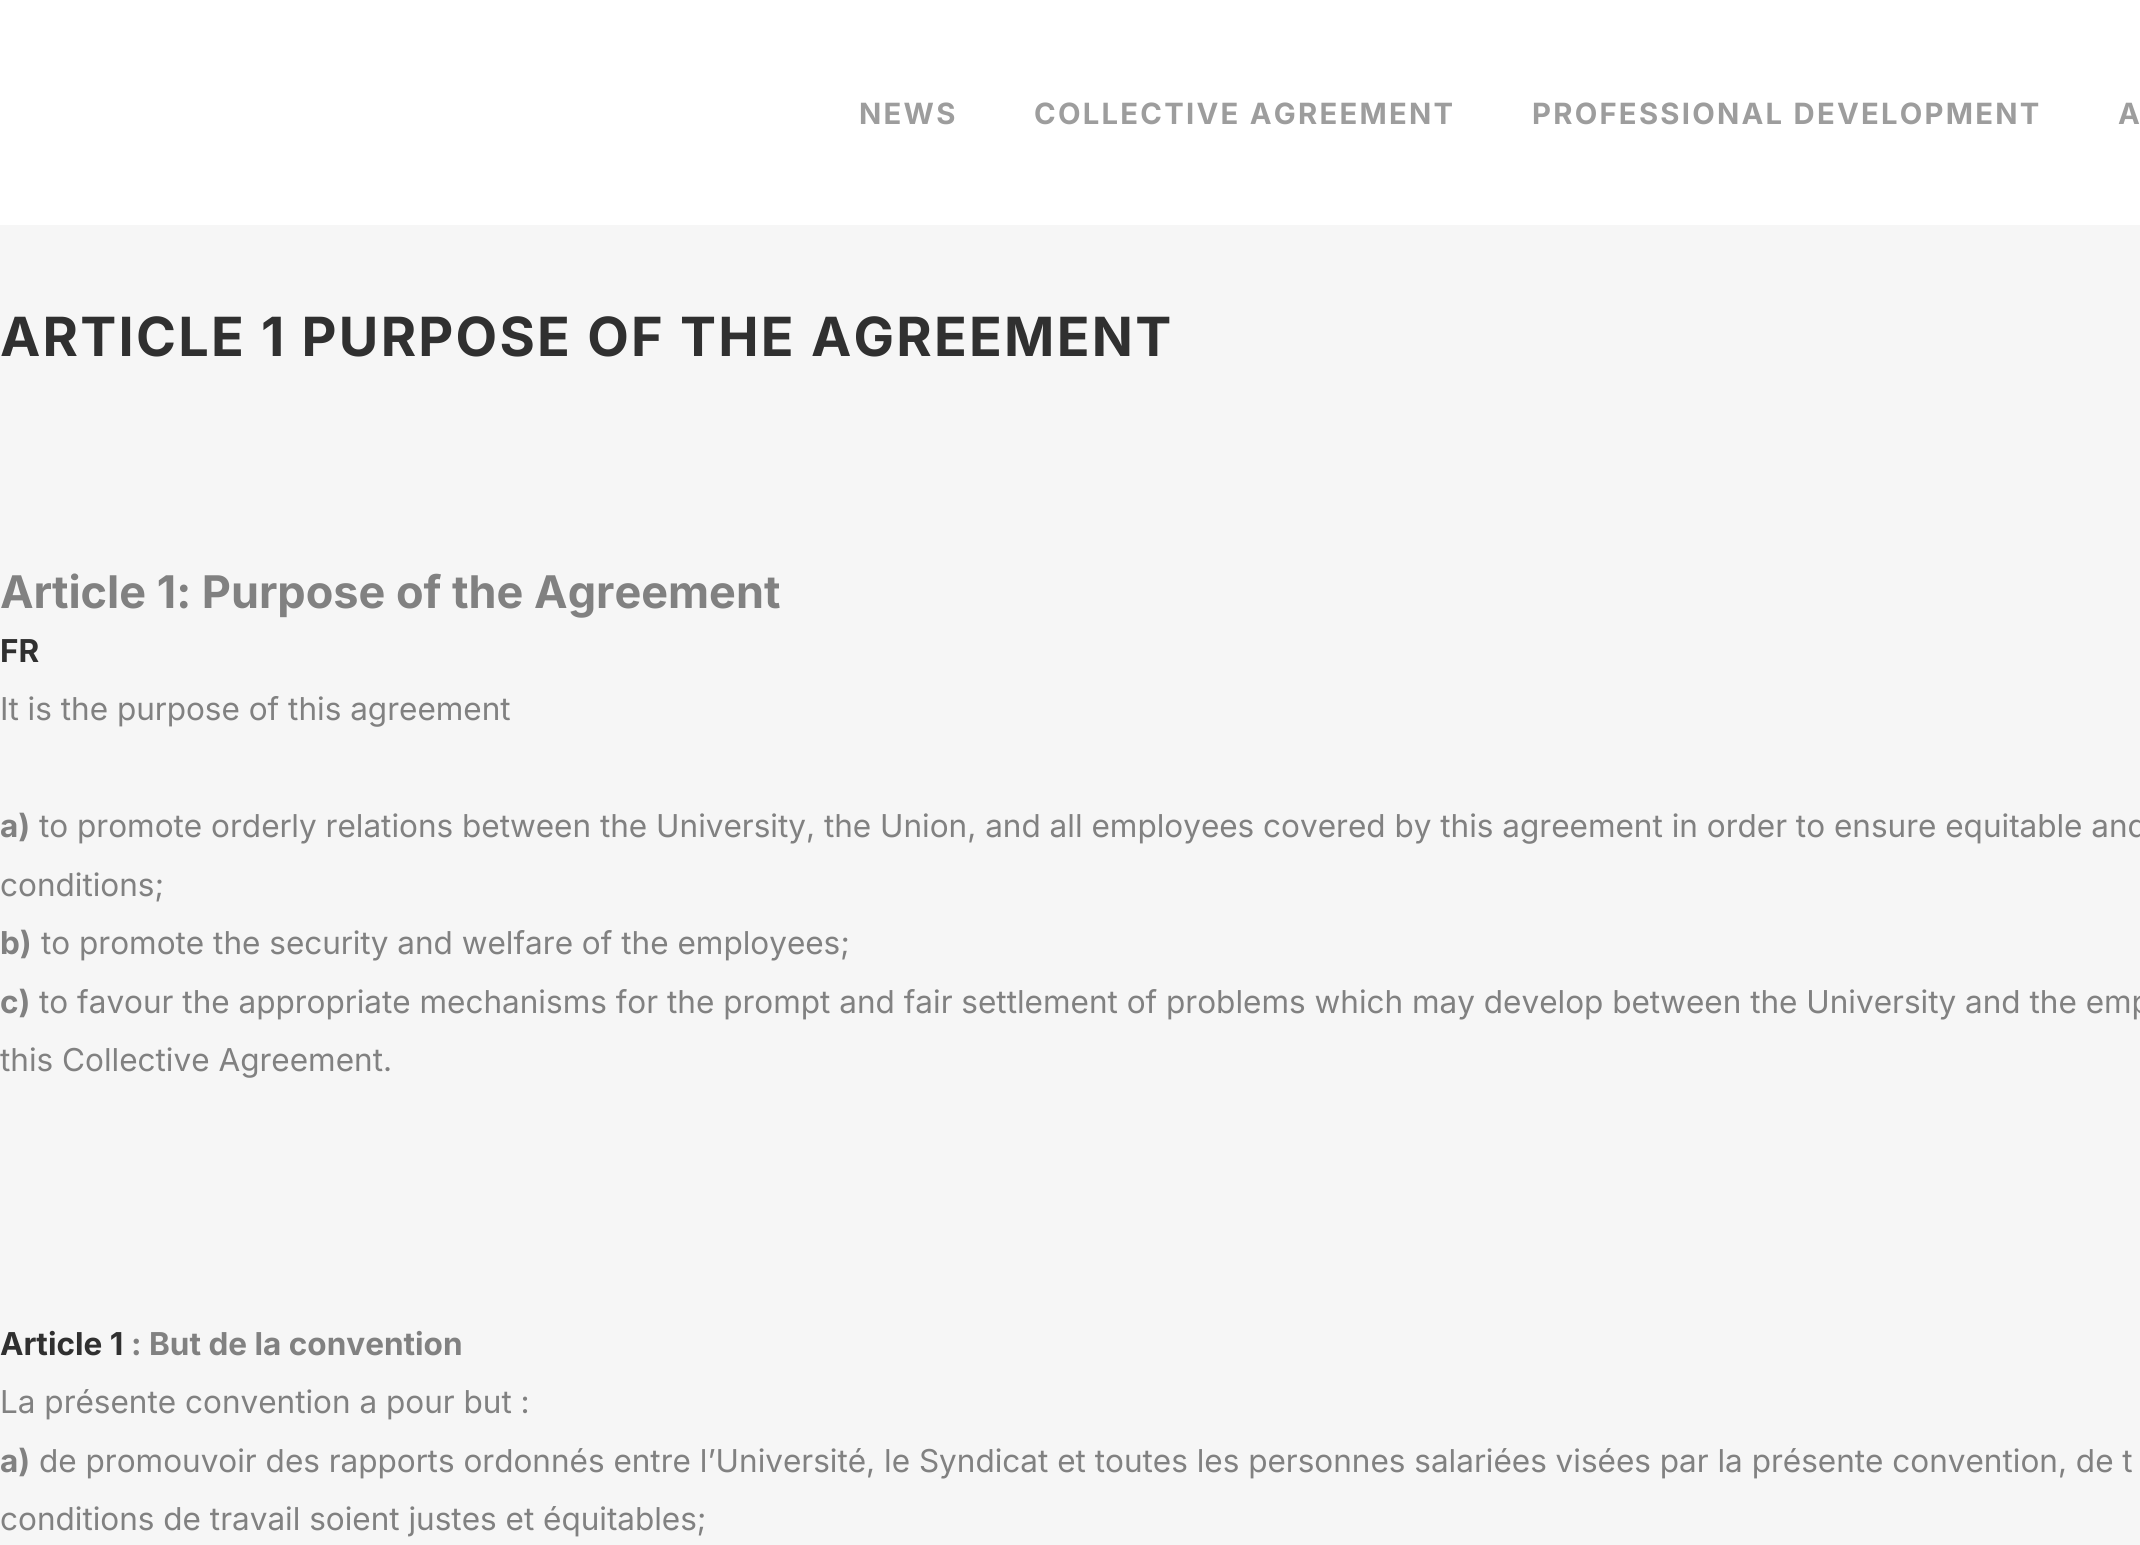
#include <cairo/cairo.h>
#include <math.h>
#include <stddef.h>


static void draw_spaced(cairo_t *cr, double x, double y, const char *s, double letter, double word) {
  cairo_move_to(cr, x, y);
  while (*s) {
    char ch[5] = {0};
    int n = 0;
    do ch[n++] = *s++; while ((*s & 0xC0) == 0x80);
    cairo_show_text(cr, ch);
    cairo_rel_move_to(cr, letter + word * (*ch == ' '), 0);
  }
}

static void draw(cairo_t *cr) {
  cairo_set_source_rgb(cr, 246 / 255.0, 246 / 255.0, 246 / 255.0);
  cairo_paint(cr);
  cairo_set_source_rgb(cr, 1, 1, 1);
  cairo_rectangle(cr, 0, 0, 2140, 225);
  cairo_fill(cr);
  cairo_select_font_face(cr, "Inter", CAIRO_FONT_SLANT_NORMAL, CAIRO_FONT_WEIGHT_BOLD);
  cairo_set_font_size(cr, 29.25);
  cairo_set_source_rgb(cr, 157 / 255.0, 157 / 255.0, 157 / 255.0);
  draw_spaced(cr, 859, 124, "NEWS", 2.25, 0);
  draw_spaced(cr, 1034, 124, "COLLECTIVE AGREEMENT", 2.25, 0);
  draw_spaced(cr, 1532, 124, "PROFESSIONAL DEVELOPMENT", 2.25, 0);
  draw_spaced(cr, 2118, 124, "A", 2.25, 0);
  cairo_set_font_size(cr, 54);
  cairo_set_source_rgb(cr, 48 / 255.0, 48 / 255.0, 48 / 255.0);
  draw_spaced(cr, 0, 356, "ARTICLE 1 PURPOSE OF THE AGREEMENT", 2.25, 0);
  cairo_set_font_size(cr, 45);
  cairo_set_source_rgb(cr, 129 / 255.0, 129 / 255.0, 129 / 255.0);
  cairo_move_to(cr, 0, 608);
  cairo_show_text(cr, "Article 1: Purpose of the Agreement");
  cairo_set_font_size(cr, 31.5);
  cairo_set_source_rgb(cr, 48 / 255.0, 48 / 255.0, 48 / 255.0);
  cairo_move_to(cr, 0, 662);
  cairo_show_text(cr, "FR");
  cairo_select_font_face(cr, "Inter", CAIRO_FONT_SLANT_NORMAL, CAIRO_FONT_WEIGHT_NORMAL);
  cairo_set_source_rgb(cr, 129 / 255.0, 129 / 255.0, 129 / 255.0);
  cairo_move_to(cr, 0, 720);
  cairo_show_text(cr, "It is the purpose of this agreement");
  cairo_select_font_face(cr, "Inter", CAIRO_FONT_SLANT_NORMAL, CAIRO_FONT_WEIGHT_BOLD);
  cairo_move_to(cr, 0, 837);
  cairo_show_text(cr, "a)");
  cairo_select_font_face(cr, "Inter", CAIRO_FONT_SLANT_NORMAL, CAIRO_FONT_WEIGHT_NORMAL);
  cairo_move_to(cr, 39, 837);
  cairo_show_text(cr, "to promote orderly relations between the University, the Union, and all employees covered by this agreement in order to ensure equitable and");
  cairo_move_to(cr, 0, 896);
  cairo_show_text(cr, "conditions;");
  cairo_select_font_face(cr, "Inter", CAIRO_FONT_SLANT_NORMAL, CAIRO_FONT_WEIGHT_BOLD);
  cairo_move_to(cr, 0, 954);
  cairo_show_text(cr, "b)");
  cairo_select_font_face(cr, "Inter", CAIRO_FONT_SLANT_NORMAL, CAIRO_FONT_WEIGHT_NORMAL);
  cairo_move_to(cr, 41, 954);
  cairo_show_text(cr, "to promote the security and welfare of the employees;");
  cairo_select_font_face(cr, "Inter", CAIRO_FONT_SLANT_NORMAL, CAIRO_FONT_WEIGHT_BOLD);
  cairo_move_to(cr, 0, 1013);
  cairo_show_text(cr, "c)");
  cairo_select_font_face(cr, "Inter", CAIRO_FONT_SLANT_NORMAL, CAIRO_FONT_WEIGHT_NORMAL);
  cairo_move_to(cr, 39, 1013);
  cairo_show_text(cr, "to favour the appropriate mechanisms for the prompt and fair settlement of problems which may develop between the University and the emp");
  cairo_move_to(cr, 0, 1071);
  cairo_show_text(cr, "this Collective Agreement.");
  cairo_select_font_face(cr, "Inter", CAIRO_FONT_SLANT_NORMAL, CAIRO_FONT_WEIGHT_BOLD);
  cairo_set_source_rgb(cr, 48 / 255.0, 48 / 255.0, 48 / 255.0);
  cairo_move_to(cr, 0, 1355);
  cairo_show_text(cr, "Article 1");
  cairo_set_source_rgb(cr, 129 / 255.0, 129 / 255.0, 129 / 255.0);
  cairo_move_to(cr, 131, 1355);
  cairo_show_text(cr, ": But de la convention");
  cairo_select_font_face(cr, "Inter", CAIRO_FONT_SLANT_NORMAL, CAIRO_FONT_WEIGHT_NORMAL);
  cairo_move_to(cr, 0, 1413);
  cairo_show_text(cr, "La présente convention a pour but :");
  cairo_select_font_face(cr, "Inter", CAIRO_FONT_SLANT_NORMAL, CAIRO_FONT_WEIGHT_BOLD);
  cairo_move_to(cr, 0, 1472);
  cairo_show_text(cr, "a)");
  cairo_select_font_face(cr, "Inter", CAIRO_FONT_SLANT_NORMAL, CAIRO_FONT_WEIGHT_NORMAL);
  cairo_move_to(cr, 39, 1472);
  cairo_show_text(cr, "de promouvoir des rapports ordonnés entre l’Université, le Syndicat et toutes les personnes salariées visées par la présente convention, de t");
  cairo_move_to(cr, 0, 1530);
  cairo_show_text(cr, "conditions de travail soient justes et équitables;");
}

int main(void) {
  cairo_surface_t *surface = cairo_image_surface_create(CAIRO_FORMAT_RGB24, 2140, 1545);
  cairo_t *cr = cairo_create(surface);
  cairo_font_options_t *options = cairo_font_options_create();
  cairo_font_options_set_hint_metrics(options, CAIRO_HINT_METRICS_OFF);
  cairo_font_options_set_hint_style(options, CAIRO_HINT_STYLE_NONE);
  cairo_set_font_options(cr, options);
  cairo_set_miter_limit(cr, 4);
  draw(cr);
  cairo_surface_write_to_png(surface, "out.png");
  cairo_font_options_destroy(options);
  cairo_destroy(cr);
  cairo_surface_destroy(surface);
  return 0;
}
